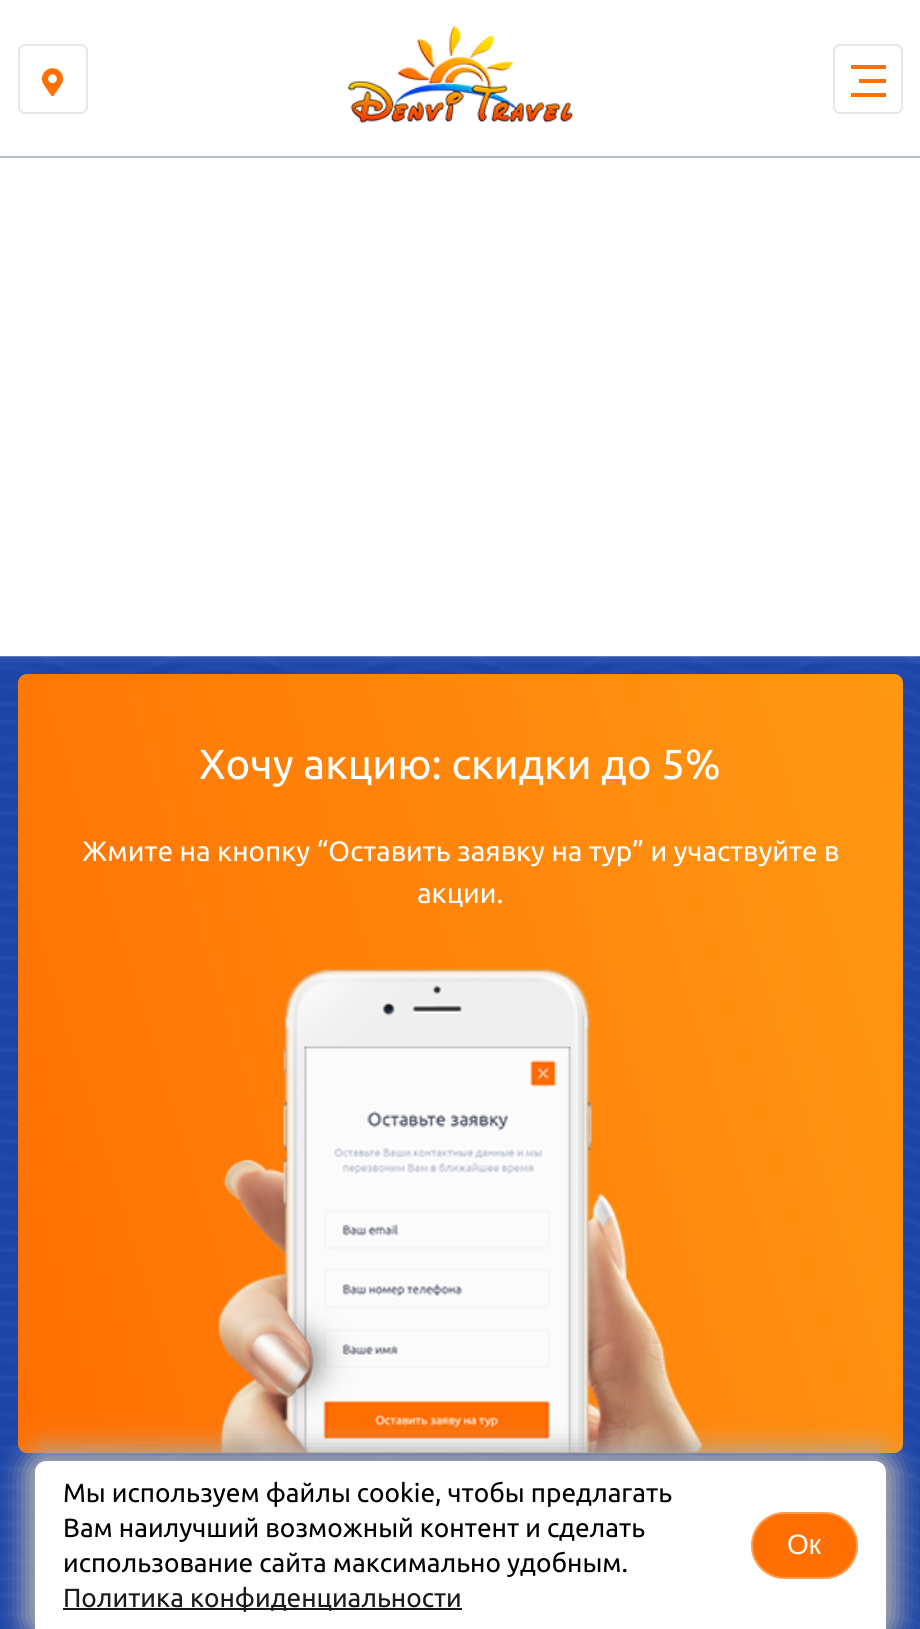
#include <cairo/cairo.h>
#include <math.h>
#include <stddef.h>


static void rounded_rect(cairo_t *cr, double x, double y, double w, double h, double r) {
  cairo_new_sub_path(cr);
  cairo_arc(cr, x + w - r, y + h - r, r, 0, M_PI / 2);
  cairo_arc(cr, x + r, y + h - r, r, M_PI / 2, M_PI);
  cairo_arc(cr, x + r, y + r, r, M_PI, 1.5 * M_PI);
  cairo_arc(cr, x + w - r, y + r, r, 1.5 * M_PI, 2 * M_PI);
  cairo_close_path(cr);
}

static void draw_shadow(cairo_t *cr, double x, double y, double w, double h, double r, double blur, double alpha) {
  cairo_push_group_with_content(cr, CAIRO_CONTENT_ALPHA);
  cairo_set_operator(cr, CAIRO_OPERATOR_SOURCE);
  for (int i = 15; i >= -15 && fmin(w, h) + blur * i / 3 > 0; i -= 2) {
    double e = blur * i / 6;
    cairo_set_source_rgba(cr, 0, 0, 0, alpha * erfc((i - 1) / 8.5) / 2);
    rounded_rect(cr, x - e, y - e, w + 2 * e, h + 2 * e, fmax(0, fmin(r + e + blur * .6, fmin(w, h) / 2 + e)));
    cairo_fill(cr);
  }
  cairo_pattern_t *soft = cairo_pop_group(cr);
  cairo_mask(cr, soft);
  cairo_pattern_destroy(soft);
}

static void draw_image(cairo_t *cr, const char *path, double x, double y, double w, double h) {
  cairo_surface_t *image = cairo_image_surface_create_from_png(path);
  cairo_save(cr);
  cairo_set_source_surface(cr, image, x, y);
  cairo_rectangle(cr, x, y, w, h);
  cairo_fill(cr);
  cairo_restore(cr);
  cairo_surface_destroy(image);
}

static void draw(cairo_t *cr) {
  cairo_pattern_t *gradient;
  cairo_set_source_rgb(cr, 1, 1, 1);
  cairo_paint(cr);
  cairo_set_source_rgb(cr, 183 / 255.0, 190 / 255.0, 201 / 255.0);
  cairo_rectangle(cr, 0, 156, 920, 2);
  cairo_fill(cr);
  rounded_rect(cr, 19, 45, 68, 68, 6);
  cairo_set_source_rgb(cr, 227 / 255.0, 232 / 255.0, 235 / 255.0);
  cairo_stroke(cr);
  draw_image(cr, "images/1.png", 42, 68, 21, 29);
  draw_image(cr, "images/2.png", 348, 26, 225, 97);
  rounded_rect(cr, 834, 45, 68, 68, 6);
  cairo_stroke(cr);
  cairo_set_source_rgb(cr, 1, 111 / 255.0, 2 / 255.0);
  cairo_rectangle(cr, 851, 65, 35, 4);
  cairo_fill(cr);
  cairo_rectangle(cr, 859, 79, 27, 4);
  cairo_fill(cr);
  cairo_rectangle(cr, 851, 93, 35, 4);
  cairo_fill(cr);
  draw_image(cr, "images/3.png", 0, 656, 920, 973);
  gradient = cairo_pattern_create_linear(-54, 1220, 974, 906);
  cairo_pattern_add_color_stop_rgba(gradient, 0, 1, 111 / 255.0, 1 / 255.0, 1);
  cairo_pattern_add_color_stop_rgba(gradient, 1, 1, 152 / 255.0, 20 / 255.0, 1);
  cairo_set_source(cr, gradient);
  cairo_pattern_destroy(gradient);
  rounded_rect(cr, 18, 674, 885, 779, 9);
  cairo_fill(cr);
  draw_image(cr, "images/4.png", 218, 969, 484, 484);
  cairo_set_source_rgb(cr, 172 / 255.0, 172 / 255.0, 172 / 255.0);
  draw_shadow(cr, 23, 1449, 875, 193, 23, 13, 1);
  cairo_set_source_rgb(cr, 1, 1, 1);
  cairo_new_path(cr);
  cairo_move_to(cr, 46, 1461);
  cairo_line_to(cr, 875, 1461);
  cairo_curve_to(cr, 881, 1461, 886, 1466, 886, 1472);
  cairo_line_to(cr, 886, 1629);
  cairo_line_to(cr, 35, 1629);
  cairo_line_to(cr, 35, 1472);
  cairo_curve_to(cr, 35, 1466, 40, 1461, 46, 1461);
  cairo_close_path(cr);
  cairo_fill(cr);
  cairo_set_source_rgb(cr, 26 / 255.0, 26 / 255.0, 26 / 255.0);
  cairo_rectangle(cr, 63, 1608, 399, 2);
  cairo_fill(cr);
  cairo_set_source_rgb(cr, 1, 111 / 255.0, 2 / 255.0);
  rounded_rect(cr, 751, 1512, 107, 67, 33.5);
  cairo_fill(cr);
  rounded_rect(cr, 752, 1513, 105, 65, 32.5);
  cairo_set_source_rgba(cr, 1, 1, 1, 0.32);
  cairo_stroke(cr);
  cairo_select_font_face(cr, "Ubuntu", CAIRO_FONT_SLANT_NORMAL, CAIRO_FONT_WEIGHT_NORMAL);
  cairo_set_font_size(cr, 42);
  cairo_set_source_rgb(cr, 1, 1, 1);
  cairo_move_to(cr, 199, 779);
  cairo_show_text(cr, "Хочу акцию: скидки до 5%");
  cairo_set_font_size(cr, 28);
  cairo_move_to(cr, 82, 861);
  cairo_show_text(cr, "Жмите на кнопку “Оставить заявку на тур” и участвуйте в");
  cairo_move_to(cr, 417, 903);
  cairo_show_text(cr, "акции.");
  cairo_set_font_size(cr, 26.25);
  cairo_set_source_rgb(cr, 0, 0, 0);
  cairo_move_to(cr, 63, 1502);
  cairo_show_text(cr, "Мы используем файлы cookie, чтобы предлагать");
  cairo_move_to(cr, 63, 1537);
  cairo_show_text(cr, "Вам наилучший возможный контент и сделать");
  cairo_move_to(cr, 63, 1572);
  cairo_show_text(cr, "использование сайта максимально удобным.");
  cairo_set_source_rgb(cr, 26 / 255.0, 26 / 255.0, 26 / 255.0);
  cairo_move_to(cr, 63, 1607);
  cairo_show_text(cr, "Политика конфиденциальности");
  cairo_select_font_face(cr, "Liberation Sans", CAIRO_FONT_SLANT_NORMAL, CAIRO_FONT_WEIGHT_NORMAL);
  cairo_set_font_size(cr, 28);
  cairo_set_source_rgb(cr, 1, 1, 1);
  cairo_move_to(cr, 787, 1554);
  cairo_show_text(cr, "Ок");
}

int main(void) {
  cairo_surface_t *surface = cairo_image_surface_create(CAIRO_FORMAT_RGB24, 920, 1629);
  cairo_t *cr = cairo_create(surface);
  cairo_font_options_t *options = cairo_font_options_create();
  cairo_font_options_set_hint_metrics(options, CAIRO_HINT_METRICS_OFF);
  cairo_font_options_set_hint_style(options, CAIRO_HINT_STYLE_NONE);
  cairo_set_font_options(cr, options);
  cairo_set_miter_limit(cr, 4);
  draw(cr);
  cairo_surface_write_to_png(surface, "out.png");
  cairo_font_options_destroy(options);
  cairo_destroy(cr);
  cairo_surface_destroy(surface);
  return 0;
}
